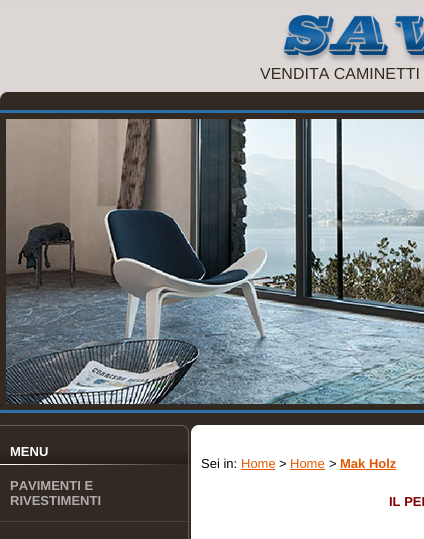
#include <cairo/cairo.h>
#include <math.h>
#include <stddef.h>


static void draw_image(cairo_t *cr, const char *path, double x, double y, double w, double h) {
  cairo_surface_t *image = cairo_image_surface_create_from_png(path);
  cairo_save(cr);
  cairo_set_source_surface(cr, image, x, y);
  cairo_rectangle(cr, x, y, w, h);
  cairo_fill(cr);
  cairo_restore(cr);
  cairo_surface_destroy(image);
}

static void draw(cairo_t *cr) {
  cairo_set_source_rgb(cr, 220 / 255.0, 215 / 255.0, 212 / 255.0);
  cairo_paint(cr);
  draw_image(cr, "images/1.png", 0, 8, 424, 436);
  draw_image(cr, "images/2.png", 6, 119, 418, 285);
  cairo_set_source_rgb(cr, 50 / 255.0, 41 / 255.0, 34 / 255.0);
  cairo_rectangle(cr, 0, 444, 191, 95);
  cairo_fill(cr);
  cairo_set_source_rgb(cr, 104 / 255.0, 95 / 255.0, 88 / 255.0);
  cairo_rectangle(cr, 188, 444, 1, 95);
  cairo_fill(cr);
  draw_image(cr, "images/3.png", 0, 450, 191, 15);
  cairo_set_source_rgb(cr, 76 / 255.0, 67 / 255.0, 60 / 255.0);
  cairo_rectangle(cr, 0, 521, 188, 1);
  cairo_fill(cr);
  cairo_set_source_rgb(cr, 1, 1, 1);
  cairo_rectangle(cr, 191, 444, 233, 95);
  cairo_fill(cr);
  cairo_set_source_rgb(cr, 227 / 255.0, 89 / 255.0, 3 / 255.0);
  cairo_rectangle(cr, 241, 469, 34, 1);
  cairo_fill(cr);
  cairo_rectangle(cr, 290, 469, 35, 1);
  cairo_fill(cr);
  cairo_rectangle(cr, 340, 469, 56, 1);
  cairo_fill(cr);
  cairo_select_font_face(cr, "Liberation Sans", CAIRO_FONT_SLANT_NORMAL, CAIRO_FONT_WEIGHT_NORMAL);
  cairo_set_font_size(cr, 16);
  cairo_set_source_rgb(cr, 50 / 255.0, 41 / 255.0, 34 / 255.0);
  cairo_move_to(cr, 260, 79);
  cairo_show_text(cr, "VENDITA CAMINETTI");
  cairo_select_font_face(cr, "Liberation Sans", CAIRO_FONT_SLANT_NORMAL, CAIRO_FONT_WEIGHT_BOLD);
  cairo_set_font_size(cr, 13);
  cairo_set_source_rgb(cr, 1, 1, 1);
  cairo_move_to(cr, 10, 456);
  cairo_show_text(cr, "MENU");
  cairo_set_source_rgb(cr, 176 / 255.0, 173 / 255.0, 172 / 255.0);
  cairo_move_to(cr, 10, 490);
  cairo_show_text(cr, "PAVIMENTI E");
  cairo_move_to(cr, 10, 505);
  cairo_show_text(cr, "RIVESTIMENTI");
  cairo_select_font_face(cr, "Liberation Sans", CAIRO_FONT_SLANT_NORMAL, CAIRO_FONT_WEIGHT_NORMAL);
  cairo_set_source_rgb(cr, 0, 0, 0);
  cairo_move_to(cr, 201, 468);
  cairo_show_text(cr, "Sei in:");
  cairo_set_source_rgb(cr, 227 / 255.0, 89 / 255.0, 3 / 255.0);
  cairo_move_to(cr, 241, 468);
  cairo_show_text(cr, "Home");
  cairo_set_source_rgb(cr, 0, 0, 0);
  cairo_move_to(cr, 279, 468);
  cairo_show_text(cr, ">");
  cairo_set_source_rgb(cr, 227 / 255.0, 89 / 255.0, 3 / 255.0);
  cairo_move_to(cr, 290, 468);
  cairo_show_text(cr, "Home");
  cairo_set_source_rgb(cr, 0, 0, 0);
  cairo_move_to(cr, 329, 468);
  cairo_show_text(cr, ">");
  cairo_select_font_face(cr, "Liberation Sans", CAIRO_FONT_SLANT_NORMAL, CAIRO_FONT_WEIGHT_BOLD);
  cairo_set_source_rgb(cr, 227 / 255.0, 89 / 255.0, 3 / 255.0);
  cairo_move_to(cr, 340, 468);
  cairo_show_text(cr, "Mak Holz");
  cairo_set_source_rgb(cr, 128 / 255.0, 0, 0);
  cairo_move_to(cr, 389, 506);
  cairo_show_text(cr, "IL PEL");
}

int main(void) {
  cairo_surface_t *surface = cairo_image_surface_create(CAIRO_FORMAT_RGB24, 424, 539);
  cairo_t *cr = cairo_create(surface);
  cairo_font_options_t *options = cairo_font_options_create();
  cairo_font_options_set_hint_metrics(options, CAIRO_HINT_METRICS_OFF);
  cairo_font_options_set_hint_style(options, CAIRO_HINT_STYLE_NONE);
  cairo_set_font_options(cr, options);
  cairo_set_miter_limit(cr, 4);
  draw(cr);
  cairo_surface_write_to_png(surface, "out.png");
  cairo_font_options_destroy(options);
  cairo_destroy(cr);
  cairo_surface_destroy(surface);
  return 0;
}
